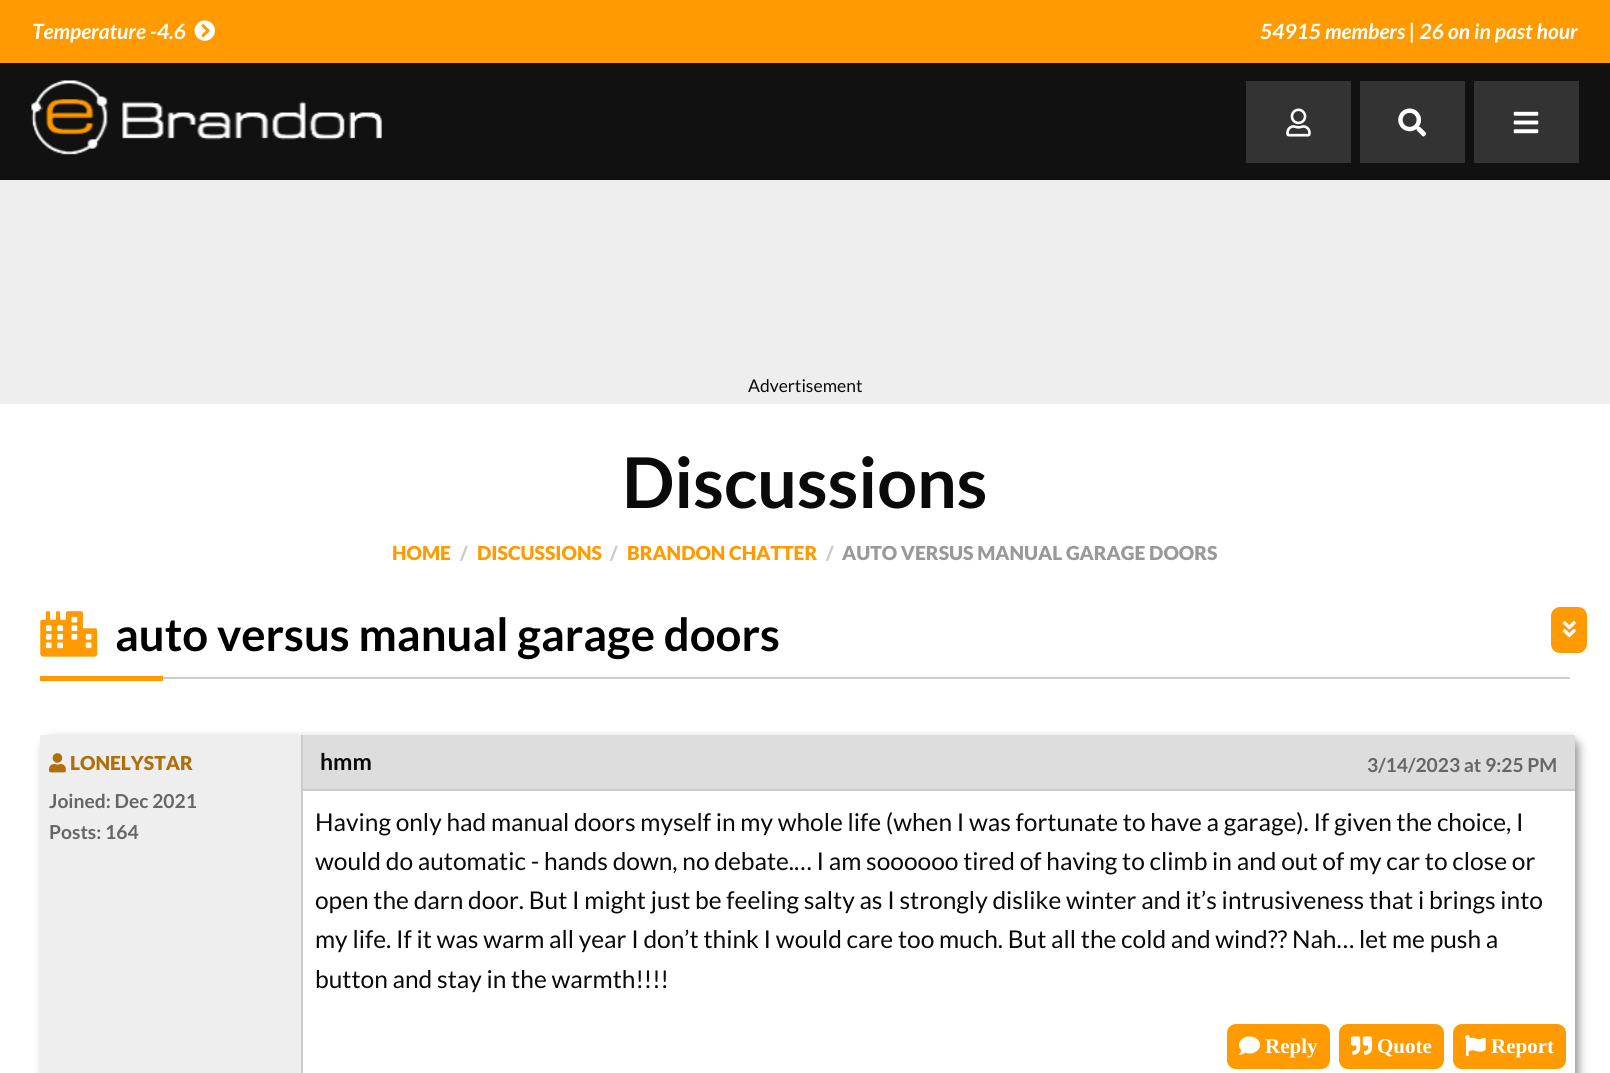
#include <cairo/cairo.h>
#include <math.h>
#include <stddef.h>


static void rounded_rect(cairo_t *cr, double x, double y, double w, double h, double r) {
  cairo_new_sub_path(cr);
  cairo_arc(cr, x + w - r, y + h - r, r, 0, M_PI / 2);
  cairo_arc(cr, x + r, y + h - r, r, M_PI / 2, M_PI);
  cairo_arc(cr, x + r, y + r, r, M_PI, 1.5 * M_PI);
  cairo_arc(cr, x + w - r, y + r, r, 1.5 * M_PI, 2 * M_PI);
  cairo_close_path(cr);
}

static void draw_shadow(cairo_t *cr, double x, double y, double w, double h, double r, double blur, double alpha) {
  cairo_push_group_with_content(cr, CAIRO_CONTENT_ALPHA);
  cairo_set_operator(cr, CAIRO_OPERATOR_SOURCE);
  for (int i = 15; i >= -15 && fmin(w, h) + blur * i / 3 > 0; i -= 2) {
    double e = blur * i / 6;
    cairo_set_source_rgba(cr, 0, 0, 0, alpha * erfc((i - 1) / 8.5) / 2);
    rounded_rect(cr, x - e, y - e, w + 2 * e, h + 2 * e, fmax(0, fmin(r + e + blur * .6, fmin(w, h) / 2 + e)));
    cairo_fill(cr);
  }
  cairo_pattern_t *soft = cairo_pop_group(cr);
  cairo_mask(cr, soft);
  cairo_pattern_destroy(soft);
}

static void draw_image(cairo_t *cr, const char *path, double x, double y, double w, double h) {
  cairo_surface_t *image = cairo_image_surface_create_from_png(path);
  cairo_save(cr);
  cairo_set_source_surface(cr, image, x, y);
  cairo_rectangle(cr, x, y, w, h);
  cairo_fill(cr);
  cairo_restore(cr);
  cairo_surface_destroy(image);
}

static void draw(cairo_t *cr) {
  cairo_set_source_rgb(cr, 1, 1, 1);
  cairo_paint(cr);
  cairo_set_source_rgb(cr, 1, 155 / 255.0, 1 / 255.0);
  cairo_rectangle(cr, 0, 0, 1610, 63);
  cairo_fill(cr);
  draw_image(cr, "images/1.png", 194, 20, 21, 21);
  cairo_set_source_rgb(cr, 17 / 255.0, 17 / 255.0, 17 / 255.0);
  cairo_rectangle(cr, 0, 63, 1610, 117);
  cairo_fill(cr);
  draw_image(cr, "images/2.png", 31, 80, 351, 75);
  cairo_set_source_rgb(cr, 51 / 255.0, 51 / 255.0, 51 / 255.0);
  cairo_rectangle(cr, 1246, 81, 105, 82);
  cairo_fill(cr);
  draw_image(cr, "images/3.png", 1286, 108, 25, 29);
  cairo_rectangle(cr, 1360, 81, 105, 82);
  cairo_fill(cr);
  draw_image(cr, "images/4.png", 1398, 108, 29, 29);
  cairo_rectangle(cr, 1474, 81, 105, 82);
  cairo_fill(cr);
  draw_image(cr, "images/5.png", 1513, 111, 26, 23);
  cairo_set_source_rgb(cr, 238 / 255.0, 238 / 255.0, 238 / 255.0);
  cairo_rectangle(cr, 0, 180, 1610, 224);
  cairo_fill(cr);
  cairo_set_source_rgb(cr, 204 / 255.0, 204 / 255.0, 204 / 255.0);
  cairo_rectangle(cr, 163, 677, 1407, 2);
  cairo_fill(cr);
  draw_image(cr, "images/6.png", 40, 611, 58, 46);
  cairo_set_source_rgb(cr, 1, 155 / 255.0, 1 / 255.0);
  rounded_rect(cr, 1551, 607, 36, 46, 9);
  cairo_fill(cr);
  draw_image(cr, "images/7.png", 1562, 621, 14, 17);
  cairo_rectangle(cr, 40, 676, 123, 5);
  cairo_fill(cr);
  cairo_save(cr);
  cairo_set_fill_rule(cr, CAIRO_FILL_RULE_EVEN_ODD);
  cairo_new_path(cr);
  cairo_move_to(cr, 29, 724);
  cairo_line_to(cr, 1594, 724);
  cairo_line_to(cr, 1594, 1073);
  cairo_line_to(cr, 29, 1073);
  cairo_close_path(cr);
  cairo_move_to(cr, 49, 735);
  cairo_line_to(cr, 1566, 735);
  cairo_curve_to(cr, 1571, 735, 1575, 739, 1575, 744);
  cairo_line_to(cr, 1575, 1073);
  cairo_curve_to(cr, 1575, 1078, 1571, 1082, 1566, 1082);
  cairo_line_to(cr, 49, 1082);
  cairo_curve_to(cr, 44, 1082, 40, 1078, 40, 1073);
  cairo_line_to(cr, 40, 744);
  cairo_curve_to(cr, 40, 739, 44, 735, 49, 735);
  cairo_close_path(cr);
  cairo_clip(cr);
  cairo_set_source_rgb(cr, 153 / 255.0, 153 / 255.0, 153 / 255.0);
  draw_shadow(cr, 44, 739, 1535, 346, 9, 4.5, 1);
  cairo_restore(cr);
  cairo_set_source_rgb(cr, 238 / 255.0, 238 / 255.0, 238 / 255.0);
  cairo_rectangle(cr, 40, 735, 261, 338);
  cairo_fill(cr);
  cairo_set_source_rgb(cr, 204 / 255.0, 204 / 255.0, 204 / 255.0);
  cairo_rectangle(cr, 301, 735, 2, 338);
  cairo_fill(cr);
  draw_image(cr, "images/8.png", 49, 753, 17, 20);
  cairo_set_source_rgb(cr, 221 / 255.0, 221 / 255.0, 221 / 255.0);
  cairo_rectangle(cr, 303, 735, 1272, 54);
  cairo_fill(cr);
  cairo_set_source_rgb(cr, 204 / 255.0, 204 / 255.0, 204 / 255.0);
  cairo_rectangle(cr, 303, 789, 1272, 2);
  cairo_fill(cr);
  cairo_set_source_rgb(cr, 1, 155 / 255.0, 1 / 255.0);
  rounded_rect(cr, 1227, 1024, 103, 45, 9);
  cairo_fill(cr);
  draw_image(cr, "images/9.png", 1239, 1036, 21, 19);
  rounded_rect(cr, 1339, 1024, 105, 45, 9);
  cairo_fill(cr);
  draw_image(cr, "images/10.png", 1351, 1036, 21, 19);
  rounded_rect(cr, 1453, 1024, 113, 45, 9);
  cairo_fill(cr);
  draw_image(cr, "images/11.png", 1465, 1035, 21, 22);
  cairo_select_font_face(cr, "Lato", CAIRO_FONT_SLANT_ITALIC, CAIRO_FONT_WEIGHT_BOLD);
  cairo_set_font_size(cr, 21);
  cairo_set_source_rgb(cr, 1, 1, 1);
  cairo_move_to(cr, 32, 39);
  cairo_show_text(cr, "Temperature -4.6");
  cairo_move_to(cr, 1260, 39);
  cairo_show_text(cr, "54915 members | 26 on in past hour");
  cairo_select_font_face(cr, "Lato", CAIRO_FONT_SLANT_NORMAL, CAIRO_FONT_WEIGHT_NORMAL);
  cairo_set_font_size(cr, 17.5);
  cairo_set_source_rgb(cr, 10 / 255.0, 10 / 255.0, 10 / 255.0);
  cairo_move_to(cr, 748, 392);
  cairo_show_text(cr, "Advertisement");
  cairo_select_font_face(cr, "Lato", CAIRO_FONT_SLANT_NORMAL, CAIRO_FONT_WEIGHT_BOLD);
  cairo_set_font_size(cr, 70);
  cairo_move_to(cr, 622, 508);
  cairo_show_text(cr, "Discussions");
  cairo_select_font_face(cr, "Lato Black", CAIRO_FONT_SLANT_NORMAL, CAIRO_FONT_WEIGHT_NORMAL);
  cairo_set_font_size(cr, 19.25);
  cairo_set_source_rgb(cr, 1, 155 / 255.0, 1 / 255.0);
  cairo_move_to(cr, 392, 560);
  cairo_show_text(cr, "HOME");
  cairo_set_source_rgb(cr, 202 / 255.0, 202 / 255.0, 202 / 255.0);
  cairo_move_to(cr, 460, 560);
  cairo_show_text(cr, "/");
  cairo_set_source_rgb(cr, 1, 155 / 255.0, 1 / 255.0);
  cairo_move_to(cr, 477, 560);
  cairo_show_text(cr, "DISCUSSIONS");
  cairo_set_source_rgb(cr, 202 / 255.0, 202 / 255.0, 202 / 255.0);
  cairo_move_to(cr, 610, 560);
  cairo_show_text(cr, "/");
  cairo_set_source_rgb(cr, 1, 155 / 255.0, 1 / 255.0);
  cairo_move_to(cr, 627, 560);
  cairo_show_text(cr, "BRANDON CHATTER");
  cairo_set_source_rgb(cr, 202 / 255.0, 202 / 255.0, 202 / 255.0);
  cairo_move_to(cr, 826, 560);
  cairo_show_text(cr, "/");
  cairo_set_source_rgb(cr, 153 / 255.0, 153 / 255.0, 153 / 255.0);
  cairo_move_to(cr, 842, 560);
  cairo_show_text(cr, "AUTO VERSUS MANUAL GARAGE DOORS");
  cairo_select_font_face(cr, "Lato", CAIRO_FONT_SLANT_NORMAL, CAIRO_FONT_WEIGHT_BOLD);
  cairo_set_font_size(cr, 45.5);
  cairo_set_source_rgb(cr, 0, 0, 0);
  cairo_move_to(cr, 115, 651);
  cairo_show_text(cr, "auto versus manual garage doors");
  cairo_select_font_face(cr, "Lato Black", CAIRO_FONT_SLANT_NORMAL, CAIRO_FONT_WEIGHT_NORMAL);
  cairo_set_font_size(cr, 19.25);
  cairo_set_source_rgb(cr, 174 / 255.0, 111 / 255.0, 13 / 255.0);
  cairo_move_to(cr, 70, 770);
  cairo_show_text(cr, "LONELYSTAR");
  cairo_select_font_face(cr, "Lato", CAIRO_FONT_SLANT_NORMAL, CAIRO_FONT_WEIGHT_BOLD);
  cairo_set_source_rgb(cr, 102 / 255.0, 102 / 255.0, 102 / 255.0);
  cairo_move_to(cr, 49, 808);
  cairo_show_text(cr, "Joined: Dec 2021");
  cairo_move_to(cr, 49, 839);
  cairo_show_text(cr, "Posts: 164");
  cairo_set_font_size(cr, 23);
  cairo_set_source_rgb(cr, 10 / 255.0, 10 / 255.0, 10 / 255.0);
  cairo_move_to(cr, 320, 770);
  cairo_show_text(cr, "hmm");
  cairo_set_font_size(cr, 19.25);
  cairo_set_source_rgb(cr, 102 / 255.0, 102 / 255.0, 102 / 255.0);
  cairo_move_to(cr, 1367, 772);
  cairo_show_text(cr, "3/14/2023 at 9:25 PM");
  cairo_select_font_face(cr, "Lato", CAIRO_FONT_SLANT_NORMAL, CAIRO_FONT_WEIGHT_NORMAL);
  cairo_set_font_size(cr, 24.5);
  cairo_set_source_rgb(cr, 10 / 255.0, 10 / 255.0, 10 / 255.0);
  cairo_move_to(cr, 315, 831);
  cairo_show_text(cr, "Having only had manual doors myself in my whole life (when I was fortunate to have a garage). If given the choice, I");
  cairo_move_to(cr, 315, 870);
  cairo_show_text(cr, "would do automatic - hands down, no debate.… I am soooooo tired of having to climb in and out of my car to close or");
  cairo_move_to(cr, 315, 909);
  cairo_show_text(cr, "open the darn door. But I might just be feeling salty as I strongly dislike winter and it’s intrusiveness that i brings into");
  cairo_move_to(cr, 315, 948);
  cairo_show_text(cr, "my life. If it was warm all year I don’t think I would care too much. But all the cold and wind?\077 Nah… let me push a");
  cairo_move_to(cr, 315, 988);
  cairo_show_text(cr, "button and stay in the warmth!!!!");
  cairo_select_font_face(cr, "Liberation Serif", CAIRO_FONT_SLANT_NORMAL, CAIRO_FONT_WEIGHT_BOLD);
  cairo_set_font_size(cr, 21);
  cairo_set_source_rgb(cr, 1, 1, 1);
  cairo_move_to(cr, 1265, 1053);
  cairo_show_text(cr, "Reply");
  cairo_move_to(cr, 1377, 1053);
  cairo_show_text(cr, "Quote");
  cairo_move_to(cr, 1491, 1053);
  cairo_show_text(cr, "Report");
}

int main(void) {
  cairo_surface_t *surface = cairo_image_surface_create(CAIRO_FORMAT_RGB24, 1610, 1073);
  cairo_t *cr = cairo_create(surface);
  cairo_font_options_t *options = cairo_font_options_create();
  cairo_font_options_set_hint_metrics(options, CAIRO_HINT_METRICS_OFF);
  cairo_font_options_set_hint_style(options, CAIRO_HINT_STYLE_NONE);
  cairo_set_font_options(cr, options);
  cairo_set_miter_limit(cr, 4);
  draw(cr);
  cairo_surface_write_to_png(surface, "out.png");
  cairo_font_options_destroy(options);
  cairo_destroy(cr);
  cairo_surface_destroy(surface);
  return 0;
}
